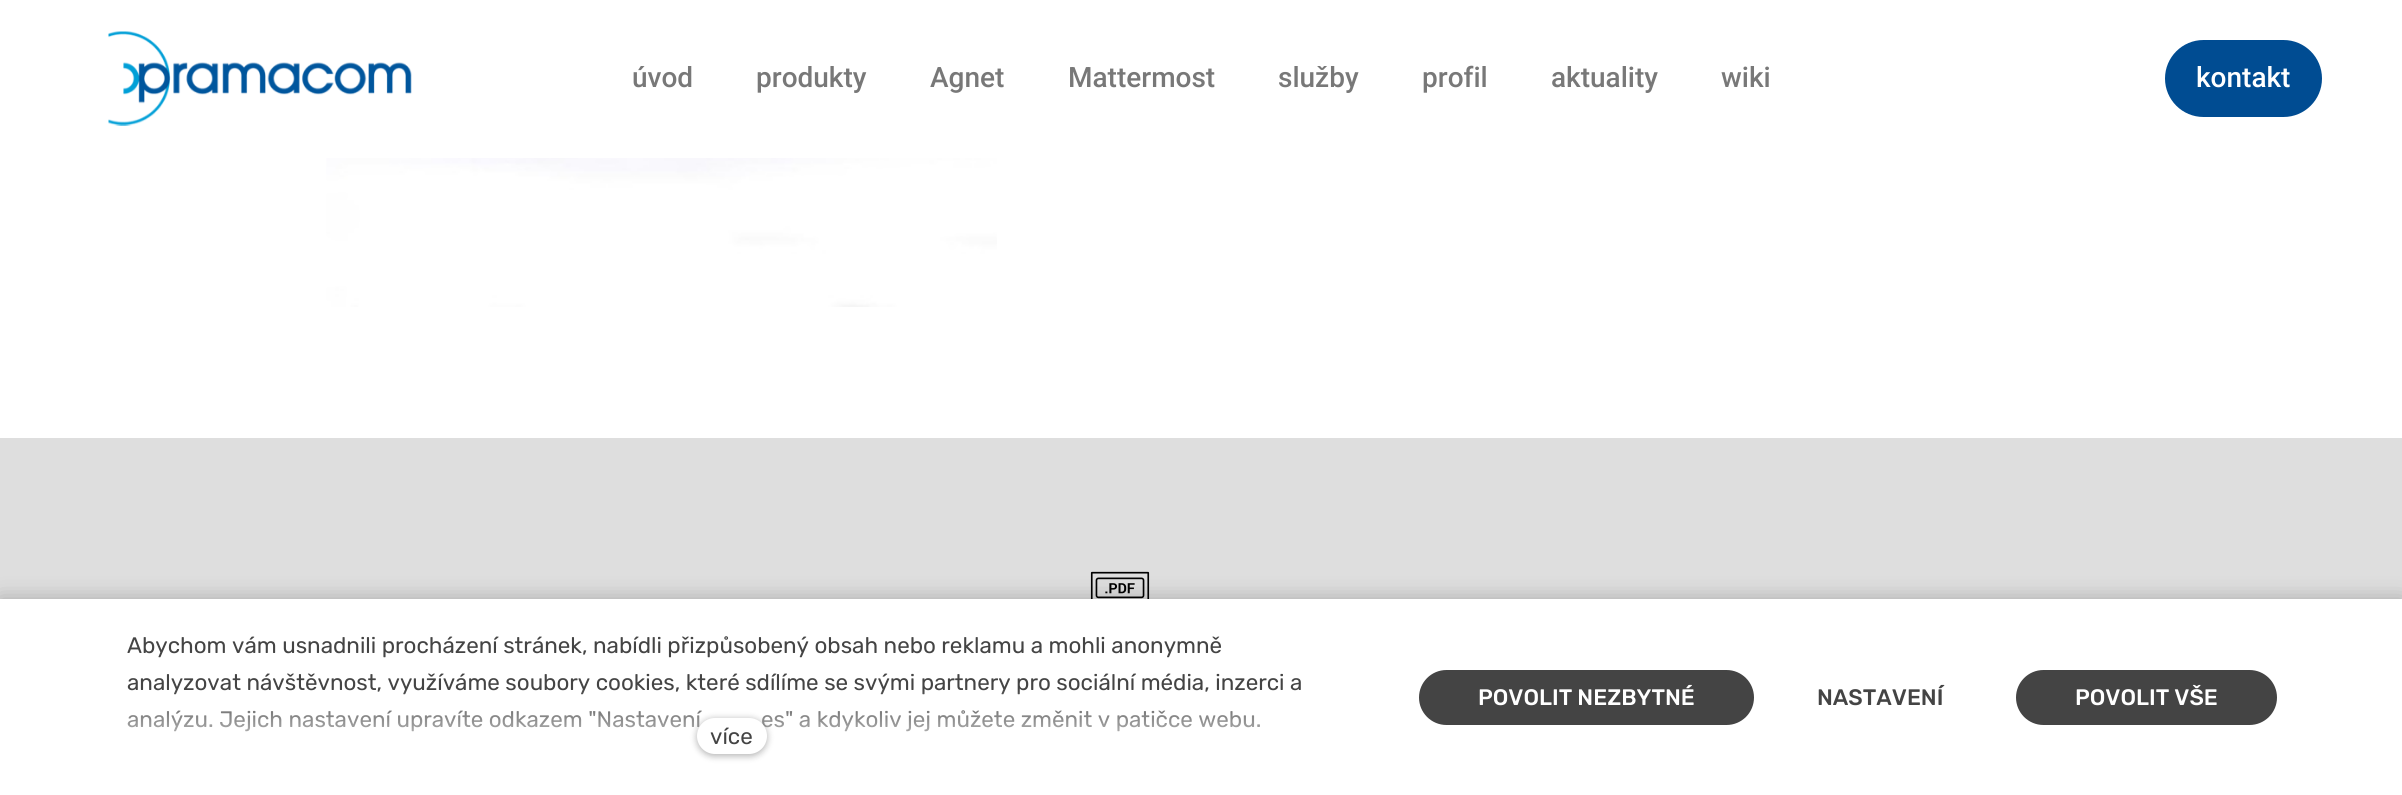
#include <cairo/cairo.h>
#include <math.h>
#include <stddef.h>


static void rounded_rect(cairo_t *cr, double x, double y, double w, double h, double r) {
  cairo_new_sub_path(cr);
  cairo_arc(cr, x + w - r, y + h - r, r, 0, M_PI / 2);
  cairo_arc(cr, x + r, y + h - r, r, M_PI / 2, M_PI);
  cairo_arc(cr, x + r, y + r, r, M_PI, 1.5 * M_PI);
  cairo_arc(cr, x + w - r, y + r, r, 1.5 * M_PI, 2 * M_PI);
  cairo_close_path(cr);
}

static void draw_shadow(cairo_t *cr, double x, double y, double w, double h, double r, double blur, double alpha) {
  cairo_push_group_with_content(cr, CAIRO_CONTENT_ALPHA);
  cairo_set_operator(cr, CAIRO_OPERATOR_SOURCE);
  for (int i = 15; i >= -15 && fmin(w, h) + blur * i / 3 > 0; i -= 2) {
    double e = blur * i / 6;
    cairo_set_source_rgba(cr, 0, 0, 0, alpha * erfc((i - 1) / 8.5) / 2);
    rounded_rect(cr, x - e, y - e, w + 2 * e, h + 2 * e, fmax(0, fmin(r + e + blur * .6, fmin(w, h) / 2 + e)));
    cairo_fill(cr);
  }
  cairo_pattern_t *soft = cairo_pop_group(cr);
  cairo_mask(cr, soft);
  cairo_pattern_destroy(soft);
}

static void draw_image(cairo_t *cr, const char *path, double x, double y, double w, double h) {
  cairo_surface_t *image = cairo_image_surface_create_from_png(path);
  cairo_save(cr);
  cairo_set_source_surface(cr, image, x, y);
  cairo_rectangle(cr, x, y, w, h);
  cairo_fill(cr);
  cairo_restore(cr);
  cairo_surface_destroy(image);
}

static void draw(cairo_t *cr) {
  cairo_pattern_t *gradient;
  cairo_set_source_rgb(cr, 1, 1, 1);
  cairo_paint(cr);
  draw_image(cr, "images/1.png", 108, 31, 304, 95);
  cairo_set_source_rgb(cr, 0, 76 / 255.0, 146 / 255.0);
  rounded_rect(cr, 2165, 40, 157, 77, 38.5);
  cairo_fill(cr);
  draw_image(cr, "images/2.png", 326, 158, 671, 149);
  cairo_set_source_rgb(cr, 222 / 255.0, 222 / 255.0, 222 / 255.0);
  cairo_rectangle(cr, 0, 438, 2402, 161);
  cairo_fill(cr);
  draw_image(cr, "images/3.png", 1090, 571, 60, 28);
  cairo_set_source_rgb(cr, 0, 0, 0);
  draw_shadow(cr, 0, 599, 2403, 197, 0, 10.5, 0.25);
  cairo_set_source_rgb(cr, 1, 1, 1);
  cairo_rectangle(cr, 0, 599, 2402, 196);
  cairo_fill(cr);
  cairo_set_source_rgb(cr, 68 / 255.0, 68 / 255.0, 68 / 255.0);
  rounded_rect(cr, 1419, 670, 335, 55, 27.5);
  cairo_fill(cr);
  rounded_rect(cr, 2016, 670, 261, 55, 27.5);
  cairo_fill(cr);
  cairo_select_font_face(cr, "Roboto Medium", CAIRO_FONT_SLANT_NORMAL, CAIRO_FONT_WEIGHT_NORMAL);
  cairo_set_font_size(cr, 28);
  cairo_set_source_rgb(cr, 120 / 255.0, 120 / 255.0, 120 / 255.0);
  cairo_move_to(cr, 632, 87);
  cairo_show_text(cr, "úvod");
  cairo_move_to(cr, 756, 87);
  cairo_show_text(cr, "produkty");
  cairo_move_to(cr, 930, 87);
  cairo_show_text(cr, "Agnet");
  cairo_move_to(cr, 1068, 87);
  cairo_show_text(cr, "Mattermost");
  cairo_move_to(cr, 1278, 87);
  cairo_show_text(cr, "služby");
  cairo_move_to(cr, 1422, 87);
  cairo_show_text(cr, "profil");
  cairo_move_to(cr, 1551, 87);
  cairo_show_text(cr, "aktuality");
  cairo_move_to(cr, 1721, 87);
  cairo_show_text(cr, "wiki");
  cairo_set_source_rgb(cr, 1, 1, 1);
  cairo_move_to(cr, 2196, 87);
  cairo_show_text(cr, "kontakt");
  cairo_select_font_face(cr, "Rubik", CAIRO_FONT_SLANT_NORMAL, CAIRO_FONT_WEIGHT_NORMAL);
  cairo_set_font_size(cr, 22.4);
  cairo_set_source_rgb(cr, 68 / 255.0, 68 / 255.0, 68 / 255.0);
  cairo_move_to(cr, 127, 653);
  cairo_show_text(cr, "Abychom vám usnadnili procházení stránek, nabídli přizpůsobený obsah nebo reklamu a mohli anonymně");
  cairo_move_to(cr, 127, 690);
  cairo_show_text(cr, "analyzovat návštěvnost, využíváme soubory cookies, které sdílíme se svými partnery pro sociální média, inzerci a");
  cairo_move_to(cr, 127, 727);
  cairo_show_text(cr, "analýzu. Jejich nastavení upravíte odkazem \"Nastavení");
  cairo_move_to(cr, 761, 727);
  cairo_show_text(cr, "es\" a kdykoliv jej můžete změnit v patičce webu.");
  gradient = cairo_pattern_create_linear(732, 768, 732, 688);
  cairo_pattern_add_color_stop_rgba(gradient, 0, 1, 1, 1, 1);
  cairo_pattern_add_color_stop_rgba(gradient, 1, 1, 1, 1, 0);
  cairo_set_source(cr, gradient);
  cairo_pattern_destroy(gradient);
  cairo_rectangle(cr, 128, 690, 1133, 42);
  cairo_fill(cr);
  cairo_set_source_rgb(cr, 0, 0, 0);
  draw_shadow(cr, 697, 719, 70, 37, 18.5, 3.5, 0.3);
  cairo_set_source_rgb(cr, 1, 1, 1);
  rounded_rect(cr, 697, 718, 70, 36, 18);
  cairo_fill(cr);
  cairo_set_source_rgb(cr, 68 / 255.0, 68 / 255.0, 68 / 255.0);
  cairo_move_to(cr, 710, 744);
  cairo_show_text(cr, "více");
  cairo_select_font_face(cr, "Rubik Medium", CAIRO_FONT_SLANT_NORMAL, CAIRO_FONT_WEIGHT_NORMAL);
  cairo_set_source_rgb(cr, 1, 1, 1);
  cairo_move_to(cr, 1478, 705);
  cairo_show_text(cr, "POVOLIT NEZBYTNÉ");
  cairo_set_source_rgb(cr, 68 / 255.0, 68 / 255.0, 68 / 255.0);
  cairo_move_to(cr, 1817, 705);
  cairo_show_text(cr, "NASTAVENÍ");
  cairo_set_source_rgb(cr, 1, 1, 1);
  cairo_move_to(cr, 2075, 705);
  cairo_show_text(cr, "POVOLIT VŠE");
}

int main(void) {
  cairo_surface_t *surface = cairo_image_surface_create(CAIRO_FORMAT_RGB24, 2402, 795);
  cairo_t *cr = cairo_create(surface);
  cairo_font_options_t *options = cairo_font_options_create();
  cairo_font_options_set_hint_metrics(options, CAIRO_HINT_METRICS_OFF);
  cairo_font_options_set_hint_style(options, CAIRO_HINT_STYLE_NONE);
  cairo_set_font_options(cr, options);
  cairo_set_miter_limit(cr, 4);
  draw(cr);
  cairo_surface_write_to_png(surface, "out.png");
  cairo_font_options_destroy(options);
  cairo_destroy(cr);
  cairo_surface_destroy(surface);
  return 0;
}
